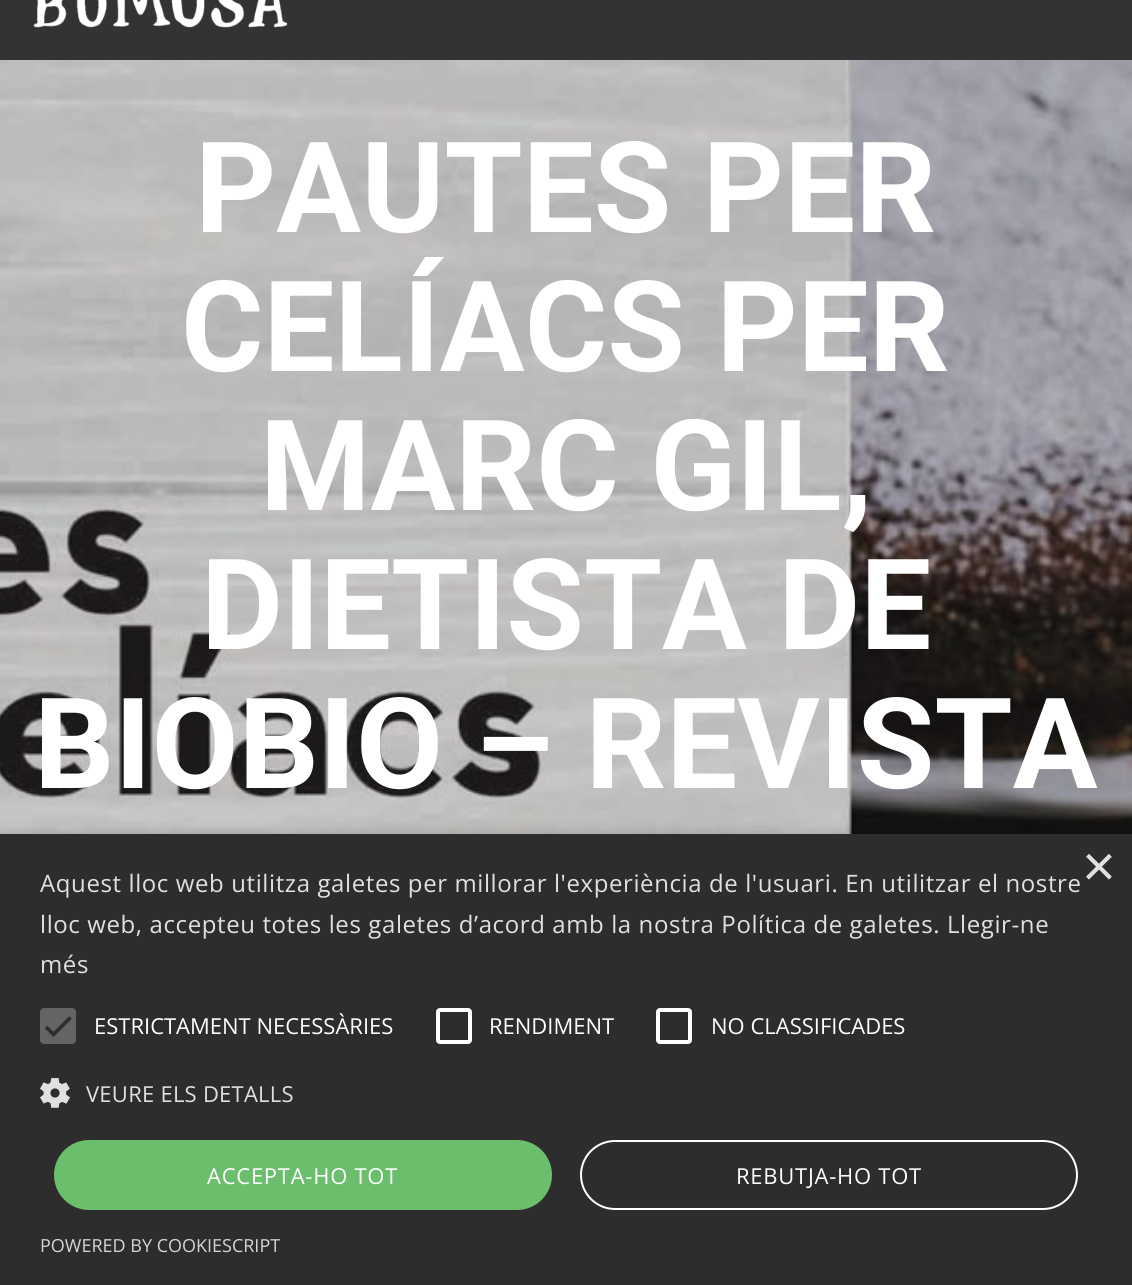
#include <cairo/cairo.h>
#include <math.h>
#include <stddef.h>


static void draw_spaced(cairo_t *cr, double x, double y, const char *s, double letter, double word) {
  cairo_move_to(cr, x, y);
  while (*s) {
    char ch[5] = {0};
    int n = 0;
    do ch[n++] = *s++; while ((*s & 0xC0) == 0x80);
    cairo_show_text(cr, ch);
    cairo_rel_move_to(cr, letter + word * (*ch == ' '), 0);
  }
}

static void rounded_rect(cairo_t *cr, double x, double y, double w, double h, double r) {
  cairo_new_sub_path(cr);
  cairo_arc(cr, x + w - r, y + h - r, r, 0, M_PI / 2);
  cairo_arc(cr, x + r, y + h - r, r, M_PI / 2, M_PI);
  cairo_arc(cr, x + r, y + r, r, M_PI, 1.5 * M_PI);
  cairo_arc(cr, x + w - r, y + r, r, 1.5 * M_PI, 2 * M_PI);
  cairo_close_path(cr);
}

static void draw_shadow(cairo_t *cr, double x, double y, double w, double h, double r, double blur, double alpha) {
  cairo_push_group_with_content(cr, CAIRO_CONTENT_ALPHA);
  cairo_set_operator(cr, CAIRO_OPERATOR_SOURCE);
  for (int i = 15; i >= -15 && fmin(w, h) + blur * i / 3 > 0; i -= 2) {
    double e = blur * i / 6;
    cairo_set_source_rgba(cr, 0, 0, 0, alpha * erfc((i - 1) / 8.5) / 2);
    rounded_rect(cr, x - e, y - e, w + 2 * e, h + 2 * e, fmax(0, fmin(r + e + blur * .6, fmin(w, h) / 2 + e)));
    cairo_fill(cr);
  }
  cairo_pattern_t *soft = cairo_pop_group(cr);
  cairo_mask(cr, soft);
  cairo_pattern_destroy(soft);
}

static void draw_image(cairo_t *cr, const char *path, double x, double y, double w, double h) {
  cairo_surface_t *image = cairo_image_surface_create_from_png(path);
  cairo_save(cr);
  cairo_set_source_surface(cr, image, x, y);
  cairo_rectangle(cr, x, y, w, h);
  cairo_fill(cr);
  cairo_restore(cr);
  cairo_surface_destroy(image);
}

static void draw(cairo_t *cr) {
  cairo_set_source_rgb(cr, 1, 1, 1);
  cairo_paint(cr);
  cairo_set_source_rgb(cr, 51 / 255.0, 51 / 255.0, 51 / 255.0);
  cairo_rectangle(cr, 0, 0, 1132, 60);
  cairo_fill(cr);
  draw_image(cr, "images/1.png", 33, 0, 255, 28);
  draw_image(cr, "images/2.png", 0, 60, 1132, 774);
  cairo_set_source_rgb(cr, 0, 0, 0);
  draw_shadow(cr, 2, 838, 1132, 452, 0, 8, 0.35);
  cairo_set_source_rgb(cr, 45 / 255.0, 45 / 255.0, 45 / 255.0);
  cairo_rectangle(cr, 0, 834, 1132, 451);
  cairo_fill(cr);
  cairo_set_source_rgb(cr, 100 / 255.0, 100 / 255.0, 100 / 255.0);
  rounded_rect(cr, 40, 1008, 36, 36, 4);
  cairo_fill(cr);
  cairo_new_path(cr);
  cairo_move_to(cr, 46, 1027);
  cairo_line_to(cr, 53.5, 1034.5);
  cairo_line_to(cr, 70.5, 1017.5);
  cairo_set_source_rgb(cr, 45 / 255.0, 45 / 255.0, 45 / 255.0);
  cairo_set_line_width(cr, 3.6);
  cairo_stroke(cr);
  rounded_rect(cr, 438, 1010, 32, 32, 2);
  cairo_set_source_rgb(cr, 1, 1, 1);
  cairo_set_line_width(cr, 4);
  cairo_stroke(cr);
  rounded_rect(cr, 658, 1010, 32, 32, 2);
  cairo_stroke(cr);
  draw_image(cr, "images/3.png", 40, 1078, 30, 30);
  cairo_set_source_rgb(cr, 107 / 255.0, 190 / 255.0, 107 / 255.0);
  rounded_rect(cr, 54, 1140, 498, 70, 35);
  cairo_fill(cr);
  rounded_rect(cr, 581, 1141, 496, 68, 34);
  cairo_set_source_rgb(cr, 1, 1, 1);
  cairo_set_line_width(cr, 2);
  cairo_stroke(cr);
  cairo_select_font_face(cr, "Roboto", CAIRO_FONT_SLANT_NORMAL, CAIRO_FONT_WEIGHT_BOLD);
  cairo_set_font_size(cr, 126.25);
  cairo_move_to(cr, 195, 232);
  cairo_show_text(cr, "PAUTES PER");
  cairo_move_to(cr, 181, 371);
  cairo_show_text(cr, "CELÍACS PER");
  cairo_move_to(cr, 260, 510);
  cairo_show_text(cr, "MARC GIL,");
  cairo_move_to(cr, 201, 649);
  cairo_show_text(cr, "DIETISTA DE");
  cairo_move_to(cr, 34, 788);
  cairo_show_text(cr, "BIOBIO – REVISTA");
  cairo_select_font_face(cr, "Liberation Sans", CAIRO_FONT_SLANT_NORMAL, CAIRO_FONT_WEIGHT_NORMAL);
  cairo_set_font_size(cr, 58);
  cairo_set_source_rgb(cr, 224 / 255.0, 224 / 255.0, 224 / 255.0);
  cairo_move_to(cr, 1082, 886);
  cairo_show_text(cr, "×");
  cairo_select_font_face(cr, "Open Sans", CAIRO_FONT_SLANT_NORMAL, CAIRO_FONT_WEIGHT_NORMAL);
  cairo_set_font_size(cr, 24);
  draw_spaced(cr, 40, 892, "Aquest lloc web utilitza galetes per millorar l'experiència de l'usuari. En utilitzar el nostre", 0.6, 0);
  draw_spaced(cr, 40, 933, "lloc web, accepteu totes les galetes d’acord amb la nostra Política de galetes. Llegir-ne", 0.6, 0);
  draw_spaced(cr, 40, 973, "més", 0.6, 0);
  cairo_set_font_size(cr, 22);
  cairo_set_source_rgb(cr, 1, 1, 1);
  cairo_move_to(cr, 94, 1034);
  cairo_show_text(cr, "ESTRICTAMENT NECESSÀRIES");
  cairo_move_to(cr, 489, 1034);
  cairo_show_text(cr, "RENDIMENT");
  cairo_move_to(cr, 711, 1034);
  cairo_show_text(cr, "NO CLASSIFICADES");
  cairo_set_source_rgb(cr, 224 / 255.0, 224 / 255.0, 224 / 255.0);
  draw_spaced(cr, 86, 1102, "VEURE ELS DETALLS", 0.25, 0);
  cairo_set_source_rgb(cr, 1, 1, 1);
  draw_spaced(cr, 207, 1184, "ACCEPTA-HO TOT", 0.75, 0);
  draw_spaced(cr, 736, 1184, "REBUTJA-HO TOT", 0.75, 0);
  cairo_set_font_size(cr, 18);
  cairo_set_source_rgb(cr, 213 / 255.0, 213 / 255.0, 213 / 255.0);
  cairo_move_to(cr, 40, 1252);
  cairo_show_text(cr, "POWERED BY COOKIESCRIPT");
}

int main(void) {
  cairo_surface_t *surface = cairo_image_surface_create(CAIRO_FORMAT_RGB24, 1132, 1285);
  cairo_t *cr = cairo_create(surface);
  cairo_font_options_t *options = cairo_font_options_create();
  cairo_font_options_set_hint_metrics(options, CAIRO_HINT_METRICS_OFF);
  cairo_font_options_set_hint_style(options, CAIRO_HINT_STYLE_NONE);
  cairo_set_font_options(cr, options);
  cairo_set_miter_limit(cr, 4);
  draw(cr);
  cairo_surface_write_to_png(surface, "out.png");
  cairo_font_options_destroy(options);
  cairo_destroy(cr);
  cairo_surface_destroy(surface);
  return 0;
}
